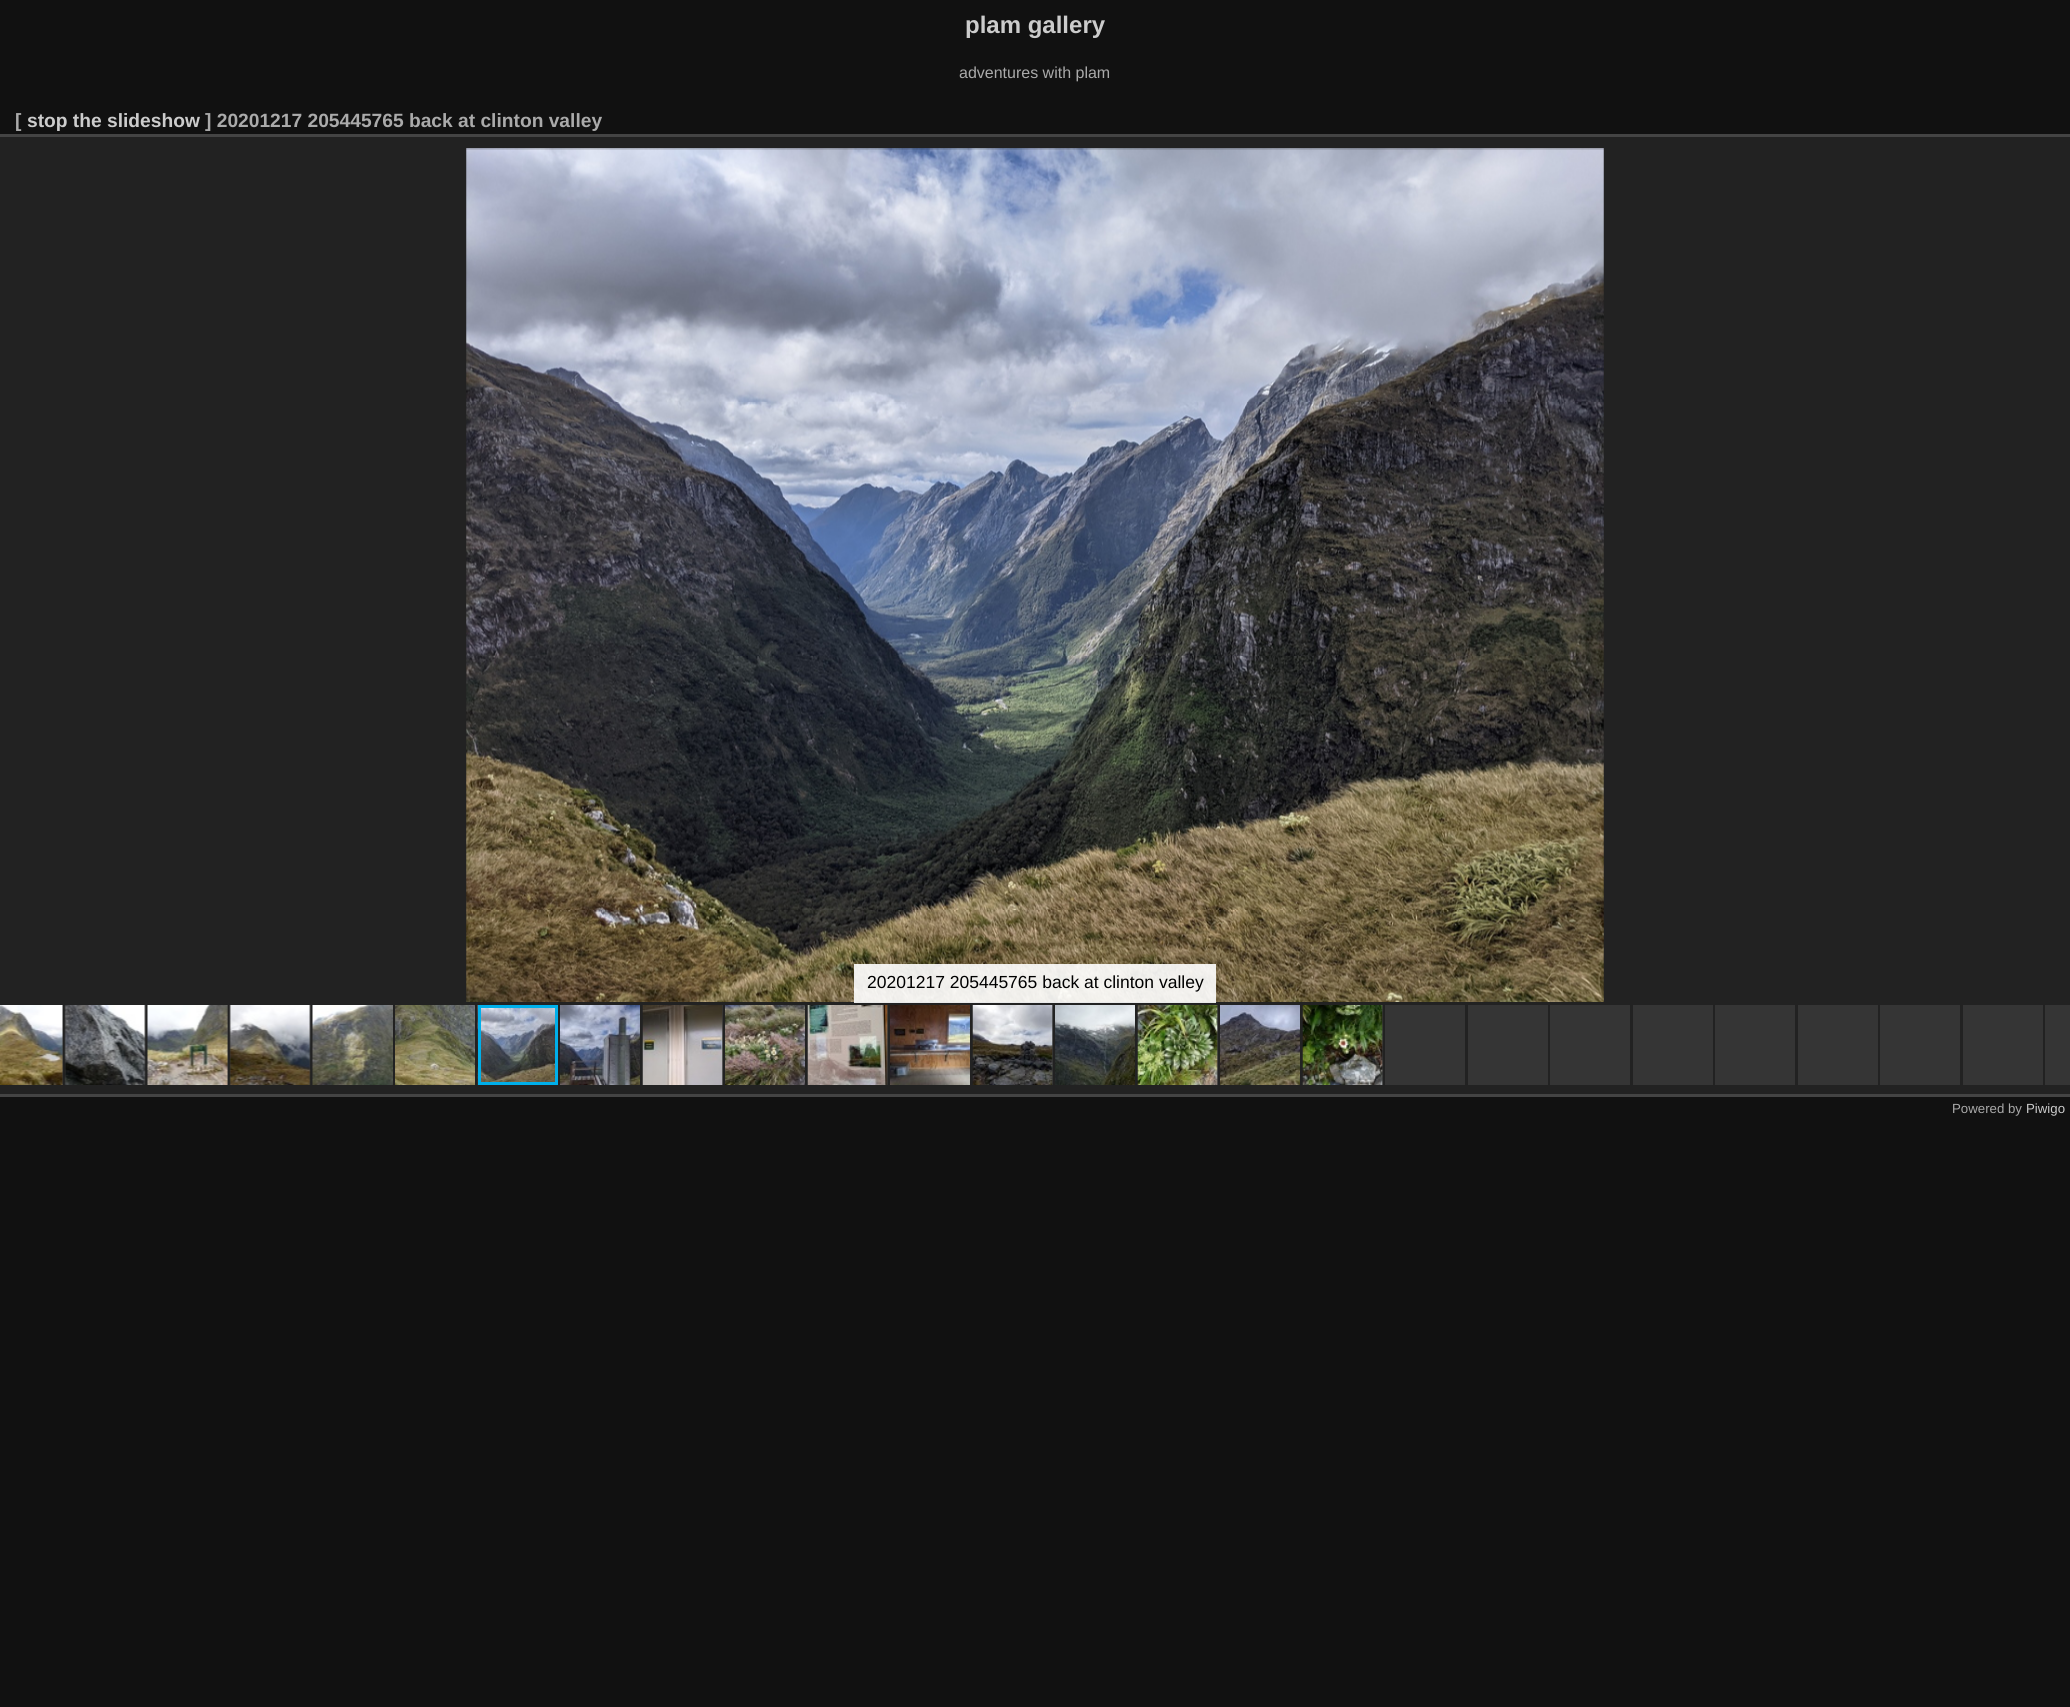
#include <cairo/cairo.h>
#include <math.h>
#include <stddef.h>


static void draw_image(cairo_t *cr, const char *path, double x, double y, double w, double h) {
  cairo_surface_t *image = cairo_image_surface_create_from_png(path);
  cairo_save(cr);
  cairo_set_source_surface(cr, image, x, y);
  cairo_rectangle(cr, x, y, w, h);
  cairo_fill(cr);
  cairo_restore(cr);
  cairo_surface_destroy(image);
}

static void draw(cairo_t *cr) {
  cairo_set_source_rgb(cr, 17 / 255.0, 17 / 255.0, 17 / 255.0);
  cairo_paint(cr);
  cairo_set_source_rgb(cr, 68 / 255.0, 68 / 255.0, 68 / 255.0);
  cairo_rectangle(cr, 0, 134, 2070, 3);
  cairo_fill(cr);
  cairo_set_source_rgb(cr, 34 / 255.0, 34 / 255.0, 34 / 255.0);
  cairo_rectangle(cr, 0, 137, 2070, 957);
  cairo_fill(cr);
  cairo_set_source_rgb(cr, 68 / 255.0, 68 / 255.0, 68 / 255.0);
  cairo_rectangle(cr, 0, 1094, 2070, 3);
  cairo_fill(cr);
  draw_image(cr, "images/1.png", 466, 148, 1138, 854);
  cairo_set_source_rgba(cr, 1, 1, 1, 0.9);
  cairo_rectangle(cr, 854, 964, 362, 39);
  cairo_fill(cr);
  cairo_set_source_rgb(cr, 53 / 255.0, 53 / 255.0, 53 / 255.0);
  cairo_rectangle(cr, 62, 1005, 1, 80);
  cairo_fill(cr);
  draw_image(cr, "images/2.png", 0, 1005, 63, 80);
  cairo_rectangle(cr, 65, 1005, 80, 80);
  cairo_fill(cr);
  draw_image(cr, "images/3.png", 64, 1005, 82, 80);
  cairo_rectangle(cr, 227, 1005, 1, 80);
  cairo_fill(cr);
  draw_image(cr, "images/4.png", 147, 1005, 81, 80);
  cairo_rectangle(cr, 230, 1005, 80, 80);
  cairo_fill(cr);
  draw_image(cr, "images/5.png", 229, 1005, 82, 80);
  draw_image(cr, "images/6.png", 312, 1005, 81, 80);
  draw_image(cr, "images/7.png", 395, 1005, 80, 80);
  draw_image(cr, "images/8.png", 477, 1005, 78, 80);
  cairo_rectangle(cr, 479.5, 1006.5, 77, 77);
  cairo_set_source_rgb(cr, 0, 175 / 255.0, 234 / 255.0);
  cairo_set_line_width(cr, 3);
  cairo_stroke(cr);
  draw_image(cr, "images/9.png", 560, 1005, 80, 80);
  cairo_set_source_rgb(cr, 53 / 255.0, 53 / 255.0, 53 / 255.0);
  cairo_rectangle(cr, 722, 1005, 1, 80);
  cairo_fill(cr);
  draw_image(cr, "images/10.png", 642, 1005, 81, 80);
  draw_image(cr, "images/11.png", 725, 1005, 80, 80);
  cairo_rectangle(cr, 887, 1005, 1, 80);
  cairo_fill(cr);
  draw_image(cr, "images/12.png", 807, 1005, 81, 80);
  draw_image(cr, "images/13.png", 890, 1005, 80, 80);
  cairo_rectangle(cr, 1052, 1005, 1, 80);
  cairo_fill(cr);
  draw_image(cr, "images/14.png", 972, 1005, 81, 80);
  draw_image(cr, "images/15.png", 1055, 1005, 80, 80);
  cairo_rectangle(cr, 1217, 1005, 1, 80);
  cairo_fill(cr);
  draw_image(cr, "images/16.png", 1137, 1005, 81, 80);
  draw_image(cr, "images/17.png", 1220, 1005, 80, 80);
  cairo_rectangle(cr, 1382, 1005, 1, 80);
  cairo_fill(cr);
  draw_image(cr, "images/18.png", 1302, 1005, 81, 80);
  cairo_rectangle(cr, 1385, 1005, 80, 80);
  cairo_fill(cr);
  cairo_rectangle(cr, 1468, 1005, 80, 80);
  cairo_fill(cr);
  cairo_rectangle(cr, 1550, 1005, 80, 80);
  cairo_fill(cr);
  cairo_rectangle(cr, 1633, 1005, 80, 80);
  cairo_fill(cr);
  cairo_rectangle(cr, 1715, 1005, 80, 80);
  cairo_fill(cr);
  cairo_rectangle(cr, 1798, 1005, 80, 80);
  cairo_fill(cr);
  cairo_rectangle(cr, 1880, 1005, 80, 80);
  cairo_fill(cr);
  cairo_rectangle(cr, 1963, 1005, 80, 80);
  cairo_fill(cr);
  cairo_rectangle(cr, 2045, 1005, 25, 80);
  cairo_fill(cr);
  cairo_select_font_face(cr, "Liberation Sans", CAIRO_FONT_SLANT_NORMAL, CAIRO_FONT_WEIGHT_BOLD);
  cairo_set_font_size(cr, 24);
  cairo_set_source_rgb(cr, 204 / 255.0, 204 / 255.0, 204 / 255.0);
  cairo_move_to(cr, 965, 33);
  cairo_show_text(cr, "plam gallery");
  cairo_select_font_face(cr, "Liberation Sans", CAIRO_FONT_SLANT_NORMAL, CAIRO_FONT_WEIGHT_NORMAL);
  cairo_set_font_size(cr, 16);
  cairo_set_source_rgb(cr, 170 / 255.0, 170 / 255.0, 170 / 255.0);
  cairo_move_to(cr, 959, 78);
  cairo_show_text(cr, "adventures with plam");
  cairo_select_font_face(cr, "Liberation Sans", CAIRO_FONT_SLANT_NORMAL, CAIRO_FONT_WEIGHT_BOLD);
  cairo_set_font_size(cr, 19.2);
  cairo_move_to(cr, 15, 127);
  cairo_show_text(cr, "[");
  cairo_set_source_rgb(cr, 204 / 255.0, 204 / 255.0, 204 / 255.0);
  cairo_move_to(cr, 27, 127);
  cairo_show_text(cr, "stop the slideshow");
  cairo_set_source_rgb(cr, 170 / 255.0, 170 / 255.0, 170 / 255.0);
  cairo_move_to(cr, 205, 127);
  cairo_show_text(cr, "] 20201217 205445765 back at clinton valley");
  cairo_select_font_face(cr, "Liberation Sans", CAIRO_FONT_SLANT_NORMAL, CAIRO_FONT_WEIGHT_NORMAL);
  cairo_set_font_size(cr, 17.5);
  cairo_set_source_rgb(cr, 0, 0, 0);
  cairo_move_to(cr, 867, 988);
  cairo_show_text(cr, "20201217 205445765 back at clinton valley");
  cairo_set_font_size(cr, 13.25);
  cairo_set_source_rgb(cr, 170 / 255.0, 170 / 255.0, 170 / 255.0);
  cairo_move_to(cr, 1952, 1113);
  cairo_show_text(cr, "Powered by");
  cairo_set_source_rgb(cr, 204 / 255.0, 204 / 255.0, 204 / 255.0);
  cairo_move_to(cr, 2026, 1113);
  cairo_show_text(cr, "Piwigo");
}

int main(void) {
  cairo_surface_t *surface = cairo_image_surface_create(CAIRO_FORMAT_RGB24, 2070, 1707);
  cairo_t *cr = cairo_create(surface);
  cairo_font_options_t *options = cairo_font_options_create();
  cairo_font_options_set_hint_metrics(options, CAIRO_HINT_METRICS_OFF);
  cairo_font_options_set_hint_style(options, CAIRO_HINT_STYLE_NONE);
  cairo_set_font_options(cr, options);
  cairo_set_miter_limit(cr, 4);
  draw(cr);
  cairo_surface_write_to_png(surface, "out.png");
  cairo_font_options_destroy(options);
  cairo_destroy(cr);
  cairo_surface_destroy(surface);
  return 0;
}
